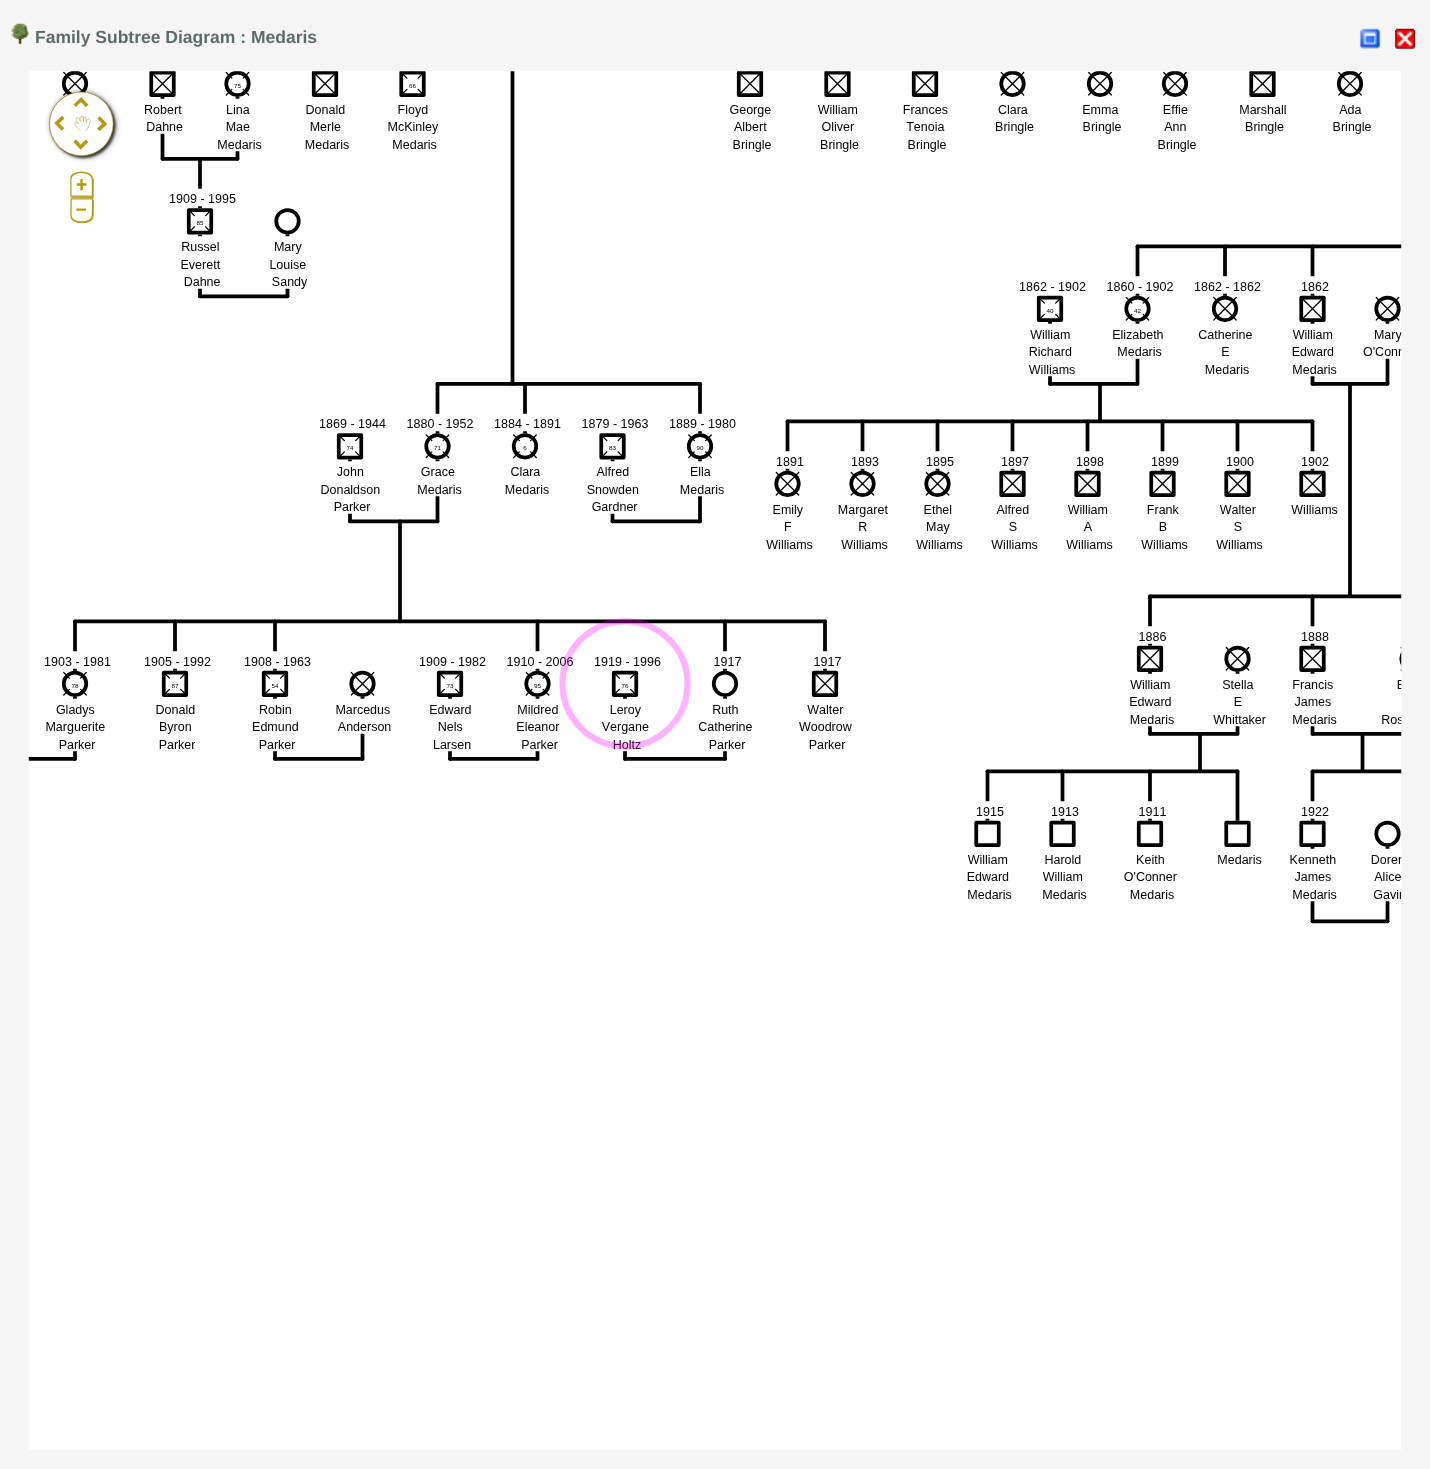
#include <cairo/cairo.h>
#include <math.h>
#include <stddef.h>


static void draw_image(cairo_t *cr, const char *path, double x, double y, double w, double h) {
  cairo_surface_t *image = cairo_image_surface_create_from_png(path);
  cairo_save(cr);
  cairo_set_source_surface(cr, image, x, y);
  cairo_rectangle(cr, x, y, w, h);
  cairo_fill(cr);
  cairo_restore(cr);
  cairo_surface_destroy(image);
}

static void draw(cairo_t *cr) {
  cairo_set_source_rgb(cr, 245 / 255.0, 245 / 255.0, 245 / 255.0);
  cairo_paint(cr);
  draw_image(cr, "images/1.png", 11, 23, 18, 21);
  draw_image(cr, "images/2.png", 1359, 28, 22, 21);
  draw_image(cr, "images/3.png", 1394, 28, 22, 21);
  cairo_set_source_rgb(cr, 1, 1, 1);
  cairo_rectangle(cr, 29, 71, 1372, 1379);
  cairo_fill(cr);
  draw_image(cr, "images/4.png", 28, 71, 1374, 853);
  cairo_select_font_face(cr, "Liberation Sans", CAIRO_FONT_SLANT_NORMAL, CAIRO_FONT_WEIGHT_BOLD);
  cairo_set_font_size(cr, 17.5);
  cairo_set_source_rgb(cr, 93 / 255.0, 107 / 255.0, 108 / 255.0);
  cairo_move_to(cr, 35, 43);
  cairo_show_text(cr, "Family Subtree Diagram : Medaris");
}

int main(void) {
  cairo_surface_t *surface = cairo_image_surface_create(CAIRO_FORMAT_RGB24, 1430, 1469);
  cairo_t *cr = cairo_create(surface);
  cairo_font_options_t *options = cairo_font_options_create();
  cairo_font_options_set_hint_metrics(options, CAIRO_HINT_METRICS_OFF);
  cairo_font_options_set_hint_style(options, CAIRO_HINT_STYLE_NONE);
  cairo_set_font_options(cr, options);
  cairo_set_miter_limit(cr, 4);
  draw(cr);
  cairo_surface_write_to_png(surface, "out.png");
  cairo_font_options_destroy(options);
  cairo_destroy(cr);
  cairo_surface_destroy(surface);
  return 0;
}
